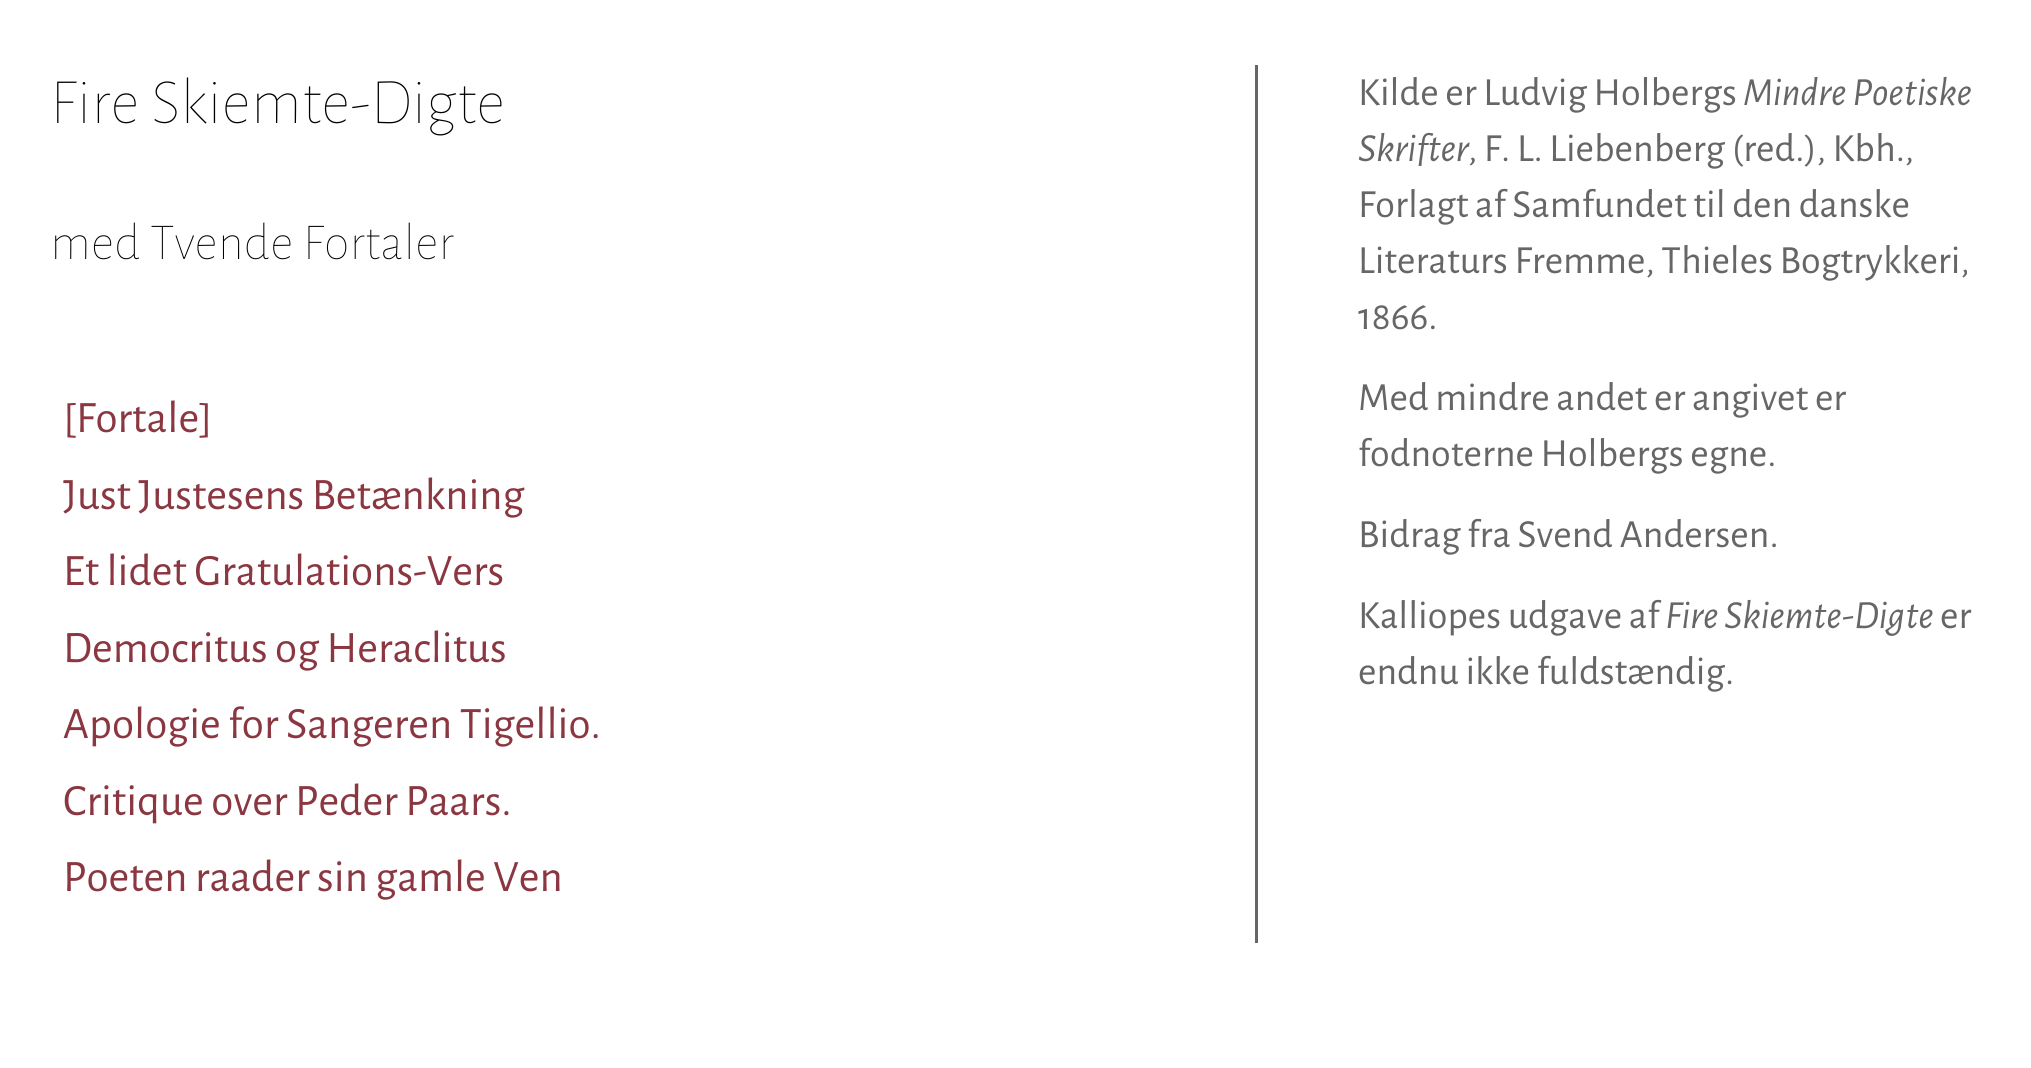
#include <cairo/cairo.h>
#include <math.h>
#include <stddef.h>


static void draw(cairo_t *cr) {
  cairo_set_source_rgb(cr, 1, 1, 1);
  cairo_paint(cr);
  cairo_set_source_rgb(cr, 102 / 255.0, 102 / 255.0, 102 / 255.0);
  cairo_rectangle(cr, 1255, 65, 3, 878);
  cairo_fill(cr);
  cairo_select_font_face(cr, "Alegreya Sans ExtraLight", CAIRO_FONT_SLANT_NORMAL, CAIRO_FONT_WEIGHT_NORMAL);
  cairo_set_font_size(cr, 65);
  cairo_set_source_rgb(cr, 0, 0, 0);
  cairo_move_to(cr, 50, 123);
  cairo_show_text(cr, "Fire Skiemte-Digte");
  cairo_set_font_size(cr, 52);
  cairo_move_to(cr, 50, 259);
  cairo_show_text(cr, "med Tvende Fortaler");
  cairo_select_font_face(cr, "Alegreya Sans", CAIRO_FONT_SLANT_NORMAL, CAIRO_FONT_WEIGHT_NORMAL);
  cairo_set_font_size(cr, 45);
  cairo_set_source_rgb(cr, 139 / 255.0, 55 / 255.0, 65 / 255.0);
  cairo_move_to(cr, 63, 432);
  cairo_show_text(cr, "[Fortale]");
  cairo_move_to(cr, 63, 509);
  cairo_show_text(cr, "Just Justesens Betænkning");
  cairo_move_to(cr, 63, 585);
  cairo_show_text(cr, "Et lidet Gratulations-Vers");
  cairo_move_to(cr, 63, 662);
  cairo_show_text(cr, "Democritus og Heraclitus");
  cairo_move_to(cr, 63, 738);
  cairo_show_text(cr, "Apologie for Sangeren Tigellio.");
  cairo_move_to(cr, 63, 815);
  cairo_show_text(cr, "Critique over Peder Paars.");
  cairo_move_to(cr, 63, 891);
  cairo_show_text(cr, "Poeten raader sin gamle Ven");
  cairo_set_font_size(cr, 40);
  cairo_set_source_rgb(cr, 102 / 255.0, 102 / 255.0, 102 / 255.0);
  cairo_move_to(cr, 1358, 105);
  cairo_show_text(cr, "Kilde er Ludvig Holbergs");
  cairo_select_font_face(cr, "Alegreya Sans", CAIRO_FONT_SLANT_ITALIC, CAIRO_FONT_WEIGHT_NORMAL);
  cairo_move_to(cr, 1743, 105);
  cairo_show_text(cr, "Mindre Poetiske");
  cairo_move_to(cr, 1358, 161);
  cairo_show_text(cr, "Skrifter");
  cairo_select_font_face(cr, "Alegreya Sans", CAIRO_FONT_SLANT_NORMAL, CAIRO_FONT_WEIGHT_NORMAL);
  cairo_move_to(cr, 1468, 161);
  cairo_show_text(cr, ", F. L. Liebenberg (red.), Kbh.,");
  cairo_move_to(cr, 1358, 217);
  cairo_show_text(cr, "Forlagt af Samfundet til den danske");
  cairo_move_to(cr, 1358, 273);
  cairo_show_text(cr, "Literaturs Fremme, Thieles Bogtrykkeri,");
  cairo_move_to(cr, 1358, 329);
  cairo_show_text(cr, "1866.");
  cairo_move_to(cr, 1358, 410);
  cairo_show_text(cr, "Med mindre andet er angivet er");
  cairo_move_to(cr, 1358, 466);
  cairo_show_text(cr, "fodnoterne Holbergs egne.");
  cairo_move_to(cr, 1358, 547);
  cairo_show_text(cr, "Bidrag fra Svend Andersen.");
  cairo_move_to(cr, 1358, 628);
  cairo_show_text(cr, "Kalliopes udgave af");
  cairo_select_font_face(cr, "Alegreya Sans", CAIRO_FONT_SLANT_ITALIC, CAIRO_FONT_WEIGHT_NORMAL);
  cairo_move_to(cr, 1665, 628);
  cairo_show_text(cr, "Fire Skiemte-Digte");
  cairo_select_font_face(cr, "Alegreya Sans", CAIRO_FONT_SLANT_NORMAL, CAIRO_FONT_WEIGHT_NORMAL);
  cairo_move_to(cr, 1940, 628);
  cairo_show_text(cr, "er");
  cairo_move_to(cr, 1358, 684);
  cairo_show_text(cr, "endnu ikke fuldstændig.");
}

int main(void) {
  cairo_surface_t *surface = cairo_image_surface_create(CAIRO_FORMAT_RGB24, 2031, 1068);
  cairo_t *cr = cairo_create(surface);
  cairo_font_options_t *options = cairo_font_options_create();
  cairo_font_options_set_hint_metrics(options, CAIRO_HINT_METRICS_OFF);
  cairo_font_options_set_hint_style(options, CAIRO_HINT_STYLE_NONE);
  cairo_set_font_options(cr, options);
  cairo_set_miter_limit(cr, 4);
  draw(cr);
  cairo_surface_write_to_png(surface, "out.png");
  cairo_font_options_destroy(options);
  cairo_destroy(cr);
  cairo_surface_destroy(surface);
  return 0;
}
